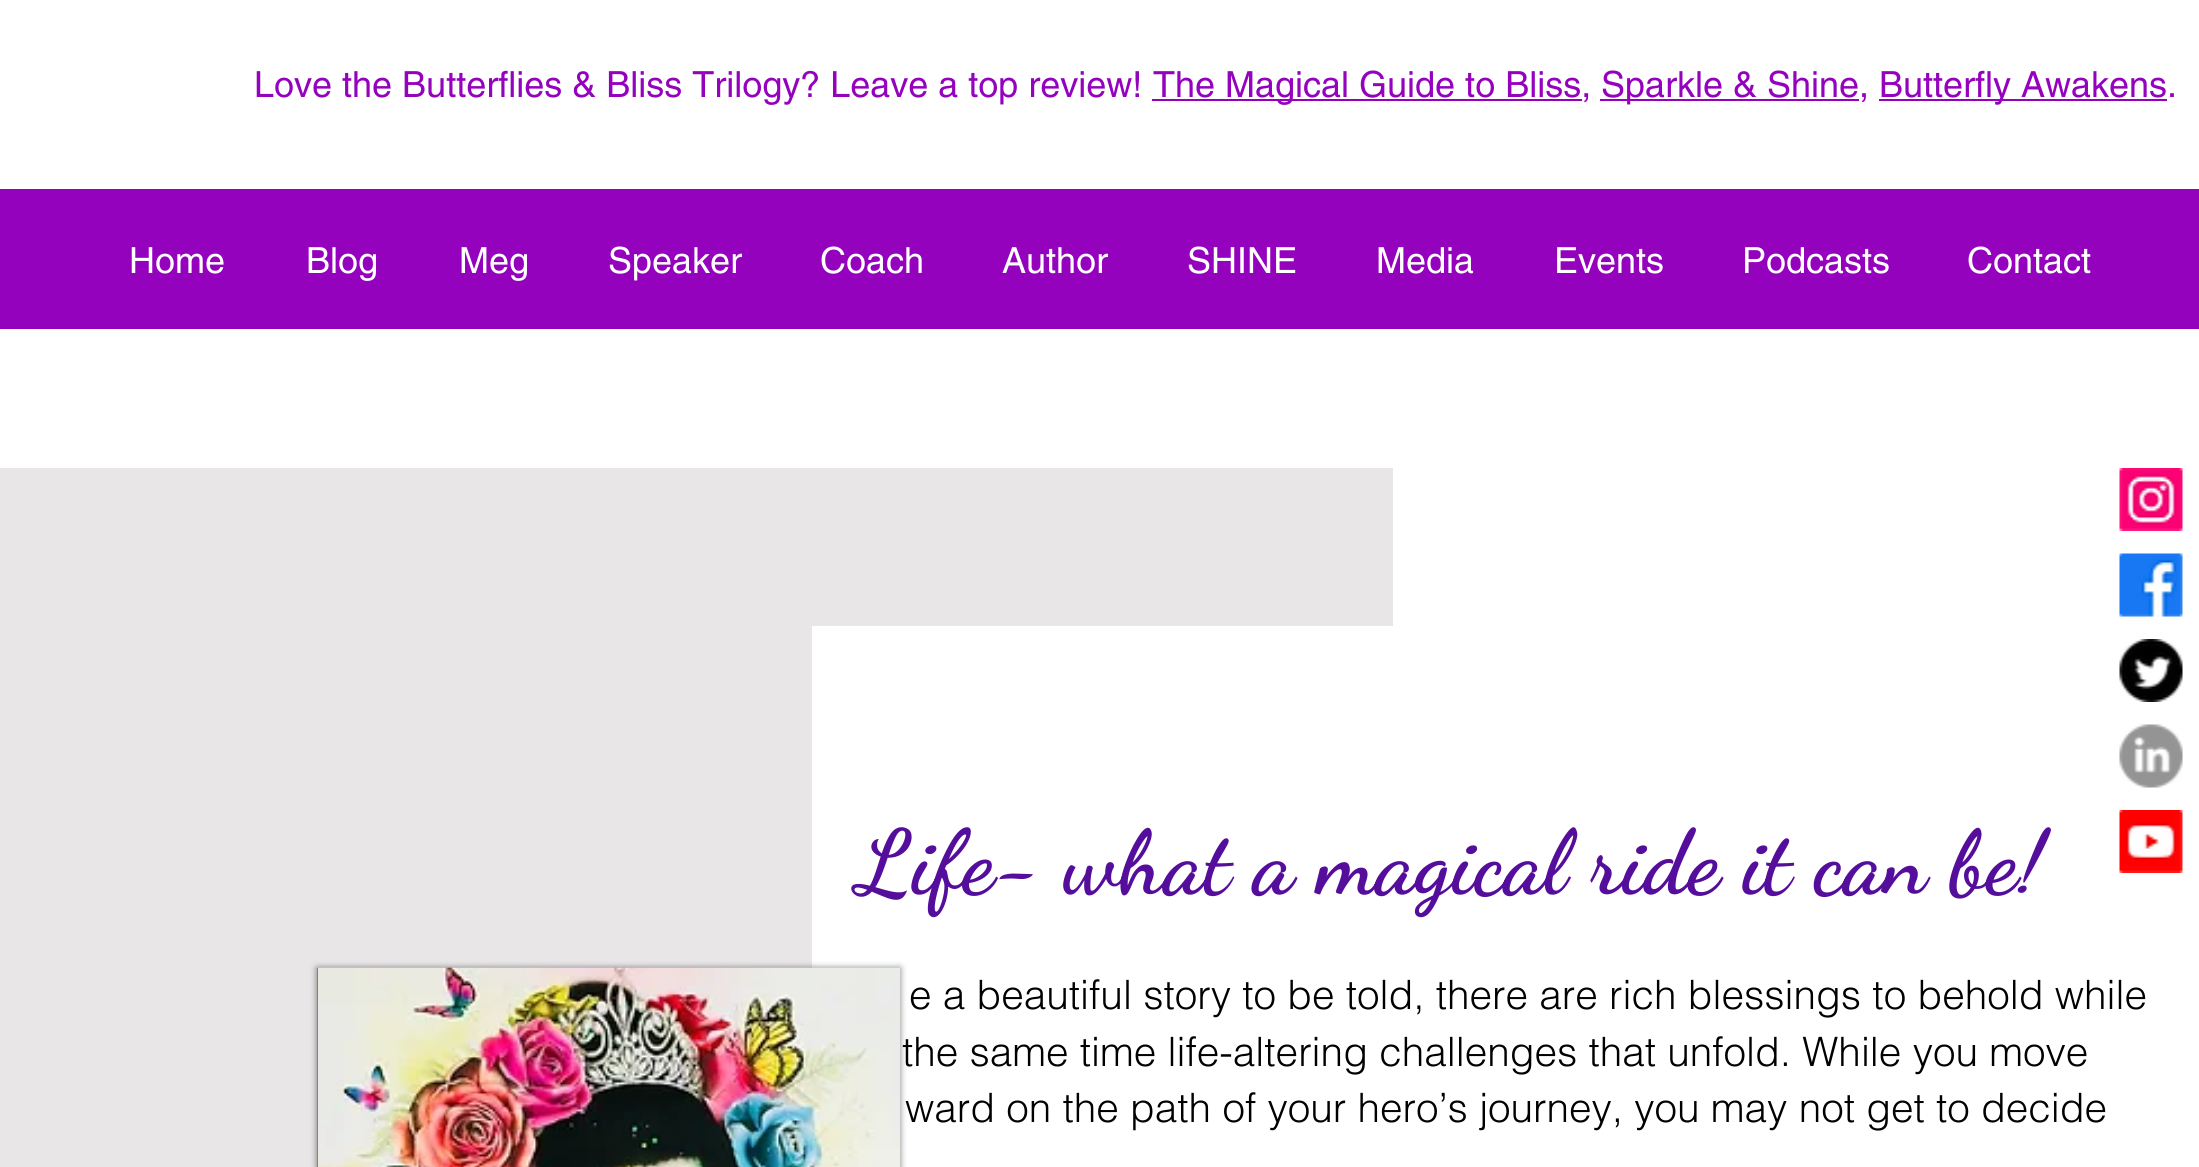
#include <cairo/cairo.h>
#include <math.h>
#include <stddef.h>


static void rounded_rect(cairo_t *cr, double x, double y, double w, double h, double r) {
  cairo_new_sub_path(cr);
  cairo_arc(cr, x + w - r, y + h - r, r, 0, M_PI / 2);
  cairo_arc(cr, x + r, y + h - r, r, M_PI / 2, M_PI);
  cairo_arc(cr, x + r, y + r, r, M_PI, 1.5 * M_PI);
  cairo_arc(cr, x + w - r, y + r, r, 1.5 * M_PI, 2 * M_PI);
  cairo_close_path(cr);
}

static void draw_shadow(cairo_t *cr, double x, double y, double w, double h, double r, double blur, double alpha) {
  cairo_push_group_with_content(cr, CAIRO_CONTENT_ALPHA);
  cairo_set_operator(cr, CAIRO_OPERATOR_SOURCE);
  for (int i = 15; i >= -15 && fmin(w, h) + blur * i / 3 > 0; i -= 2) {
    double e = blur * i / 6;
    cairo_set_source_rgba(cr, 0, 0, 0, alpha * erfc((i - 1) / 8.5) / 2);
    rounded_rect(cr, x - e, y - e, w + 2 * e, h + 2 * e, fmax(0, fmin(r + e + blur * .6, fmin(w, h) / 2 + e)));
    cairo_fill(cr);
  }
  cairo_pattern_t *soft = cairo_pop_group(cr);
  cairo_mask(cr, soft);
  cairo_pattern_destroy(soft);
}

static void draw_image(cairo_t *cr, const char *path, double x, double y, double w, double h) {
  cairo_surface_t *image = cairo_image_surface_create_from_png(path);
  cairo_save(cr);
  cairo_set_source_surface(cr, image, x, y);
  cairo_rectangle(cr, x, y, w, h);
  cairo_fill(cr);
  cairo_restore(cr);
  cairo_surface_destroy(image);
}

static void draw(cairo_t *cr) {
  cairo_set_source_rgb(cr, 1, 1, 1);
  cairo_paint(cr);
  cairo_set_source_rgb(cr, 149 / 255.0, 2 / 255.0, 190 / 255.0);
  cairo_rectangle(cr, 1152, 99, 430, 2);
  cairo_fill(cr);
  cairo_rectangle(cr, 1600, 99, 259, 2);
  cairo_fill(cr);
  cairo_rectangle(cr, 1879, 99, 288, 2);
  cairo_fill(cr);
  cairo_rectangle(cr, 0, 189, 2199, 140);
  cairo_fill(cr);
  draw_image(cr, "images/1.png", 2119, 468, 64, 63);
  draw_image(cr, "images/2.png", 2119, 553, 64, 64);
  draw_image(cr, "images/3.png", 2119, 639, 64, 63);
  draw_image(cr, "images/4.png", 2119, 724, 64, 64);
  draw_image(cr, "images/5.png", 2119, 810, 64, 63);
  cairo_set_source_rgb(cr, 232 / 255.0, 230 / 255.0, 230 / 255.0);
  cairo_rectangle(cr, 0, 468, 1393, 699);
  cairo_fill(cr);
  cairo_set_source_rgb(cr, 1, 1, 1);
  cairo_rectangle(cr, 812, 626, 581, 541);
  cairo_fill(cr);
  cairo_set_source_rgb(cr, 0, 0, 0);
  draw_shadow(cr, 317, 968, 583, 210, 0, 3.5, 0.5);
  cairo_set_source_rgb(cr, 0, 0, 0);
  cairo_rectangle(cr, 317, 968, 1, 199);
  cairo_fill(cr);
  draw_image(cr, "images/6.png", 317, 967, 583, 200);
  cairo_select_font_face(cr, "helvetica", CAIRO_FONT_SLANT_NORMAL, CAIRO_FONT_WEIGHT_NORMAL);
  cairo_set_font_size(cr, 36);
  cairo_set_source_rgb(cr, 149 / 255.0, 2 / 255.0, 190 / 255.0);
  cairo_move_to(cr, 254, 97);
  cairo_show_text(cr, "Love the Butterflies & Bliss Trilogy? Leave a top review!");
  cairo_move_to(cr, 1153, 97);
  cairo_show_text(cr, "The Magical Guide to Bliss,");
  cairo_move_to(cr, 1601, 97);
  cairo_show_text(cr, "Sparkle & Shine,");
  cairo_move_to(cr, 1879, 97);
  cairo_show_text(cr, "Butterfly Awakens.");
  cairo_set_source_rgb(cr, 1, 1, 1);
  cairo_move_to(cr, 129, 273);
  cairo_show_text(cr, "Home");
  cairo_move_to(cr, 306, 273);
  cairo_show_text(cr, "Blog");
  cairo_move_to(cr, 459, 273);
  cairo_show_text(cr, "Meg");
  cairo_move_to(cr, 608, 273);
  cairo_show_text(cr, "Speaker");
  cairo_move_to(cr, 820, 273);
  cairo_show_text(cr, "Coach");
  cairo_move_to(cr, 1002, 273);
  cairo_show_text(cr, "Author");
  cairo_move_to(cr, 1187, 273);
  cairo_show_text(cr, "SHINE");
  cairo_move_to(cr, 1376, 273);
  cairo_show_text(cr, "Media");
  cairo_move_to(cr, 1554, 273);
  cairo_show_text(cr, "Events");
  cairo_move_to(cr, 1742, 273);
  cairo_show_text(cr, "Podcasts");
  cairo_move_to(cr, 1967, 273);
  cairo_show_text(cr, "Contact");
  cairo_select_font_face(cr, "Dancing Script", CAIRO_FONT_SLANT_NORMAL, CAIRO_FONT_WEIGHT_BOLD);
  cairo_set_font_size(cr, 90);
  cairo_set_source_rgb(cr, 85 / 255.0, 14 / 255.0, 155 / 255.0);
  cairo_move_to(cr, 857, 892);
  cairo_show_text(cr, "Life- what a magical ride it can be!");
  cairo_select_font_face(cr, "helvetica Light", CAIRO_FONT_SLANT_NORMAL, CAIRO_FONT_WEIGHT_NORMAL);
  cairo_set_font_size(cr, 40.5);
  cairo_set_source_rgb(cr, 0, 0, 0);
  cairo_move_to(cr, 909, 1009);
  cairo_show_text(cr, "e a beautiful story to be told, there are rich blessings to behold while");
  cairo_move_to(cr, 902, 1066);
  cairo_show_text(cr, "the same time life-altering challenges that unfold. While you move");
  cairo_move_to(cr, 905, 1122);
  cairo_show_text(cr, "ward on the path of your hero’s journey, you may not get to decide");
}

int main(void) {
  cairo_surface_t *surface = cairo_image_surface_create(CAIRO_FORMAT_RGB24, 2199, 1167);
  cairo_t *cr = cairo_create(surface);
  cairo_font_options_t *options = cairo_font_options_create();
  cairo_font_options_set_hint_metrics(options, CAIRO_HINT_METRICS_OFF);
  cairo_font_options_set_hint_style(options, CAIRO_HINT_STYLE_NONE);
  cairo_set_font_options(cr, options);
  cairo_set_miter_limit(cr, 4);
  draw(cr);
  cairo_surface_write_to_png(surface, "out.png");
  cairo_font_options_destroy(options);
  cairo_destroy(cr);
  cairo_surface_destroy(surface);
  return 0;
}
